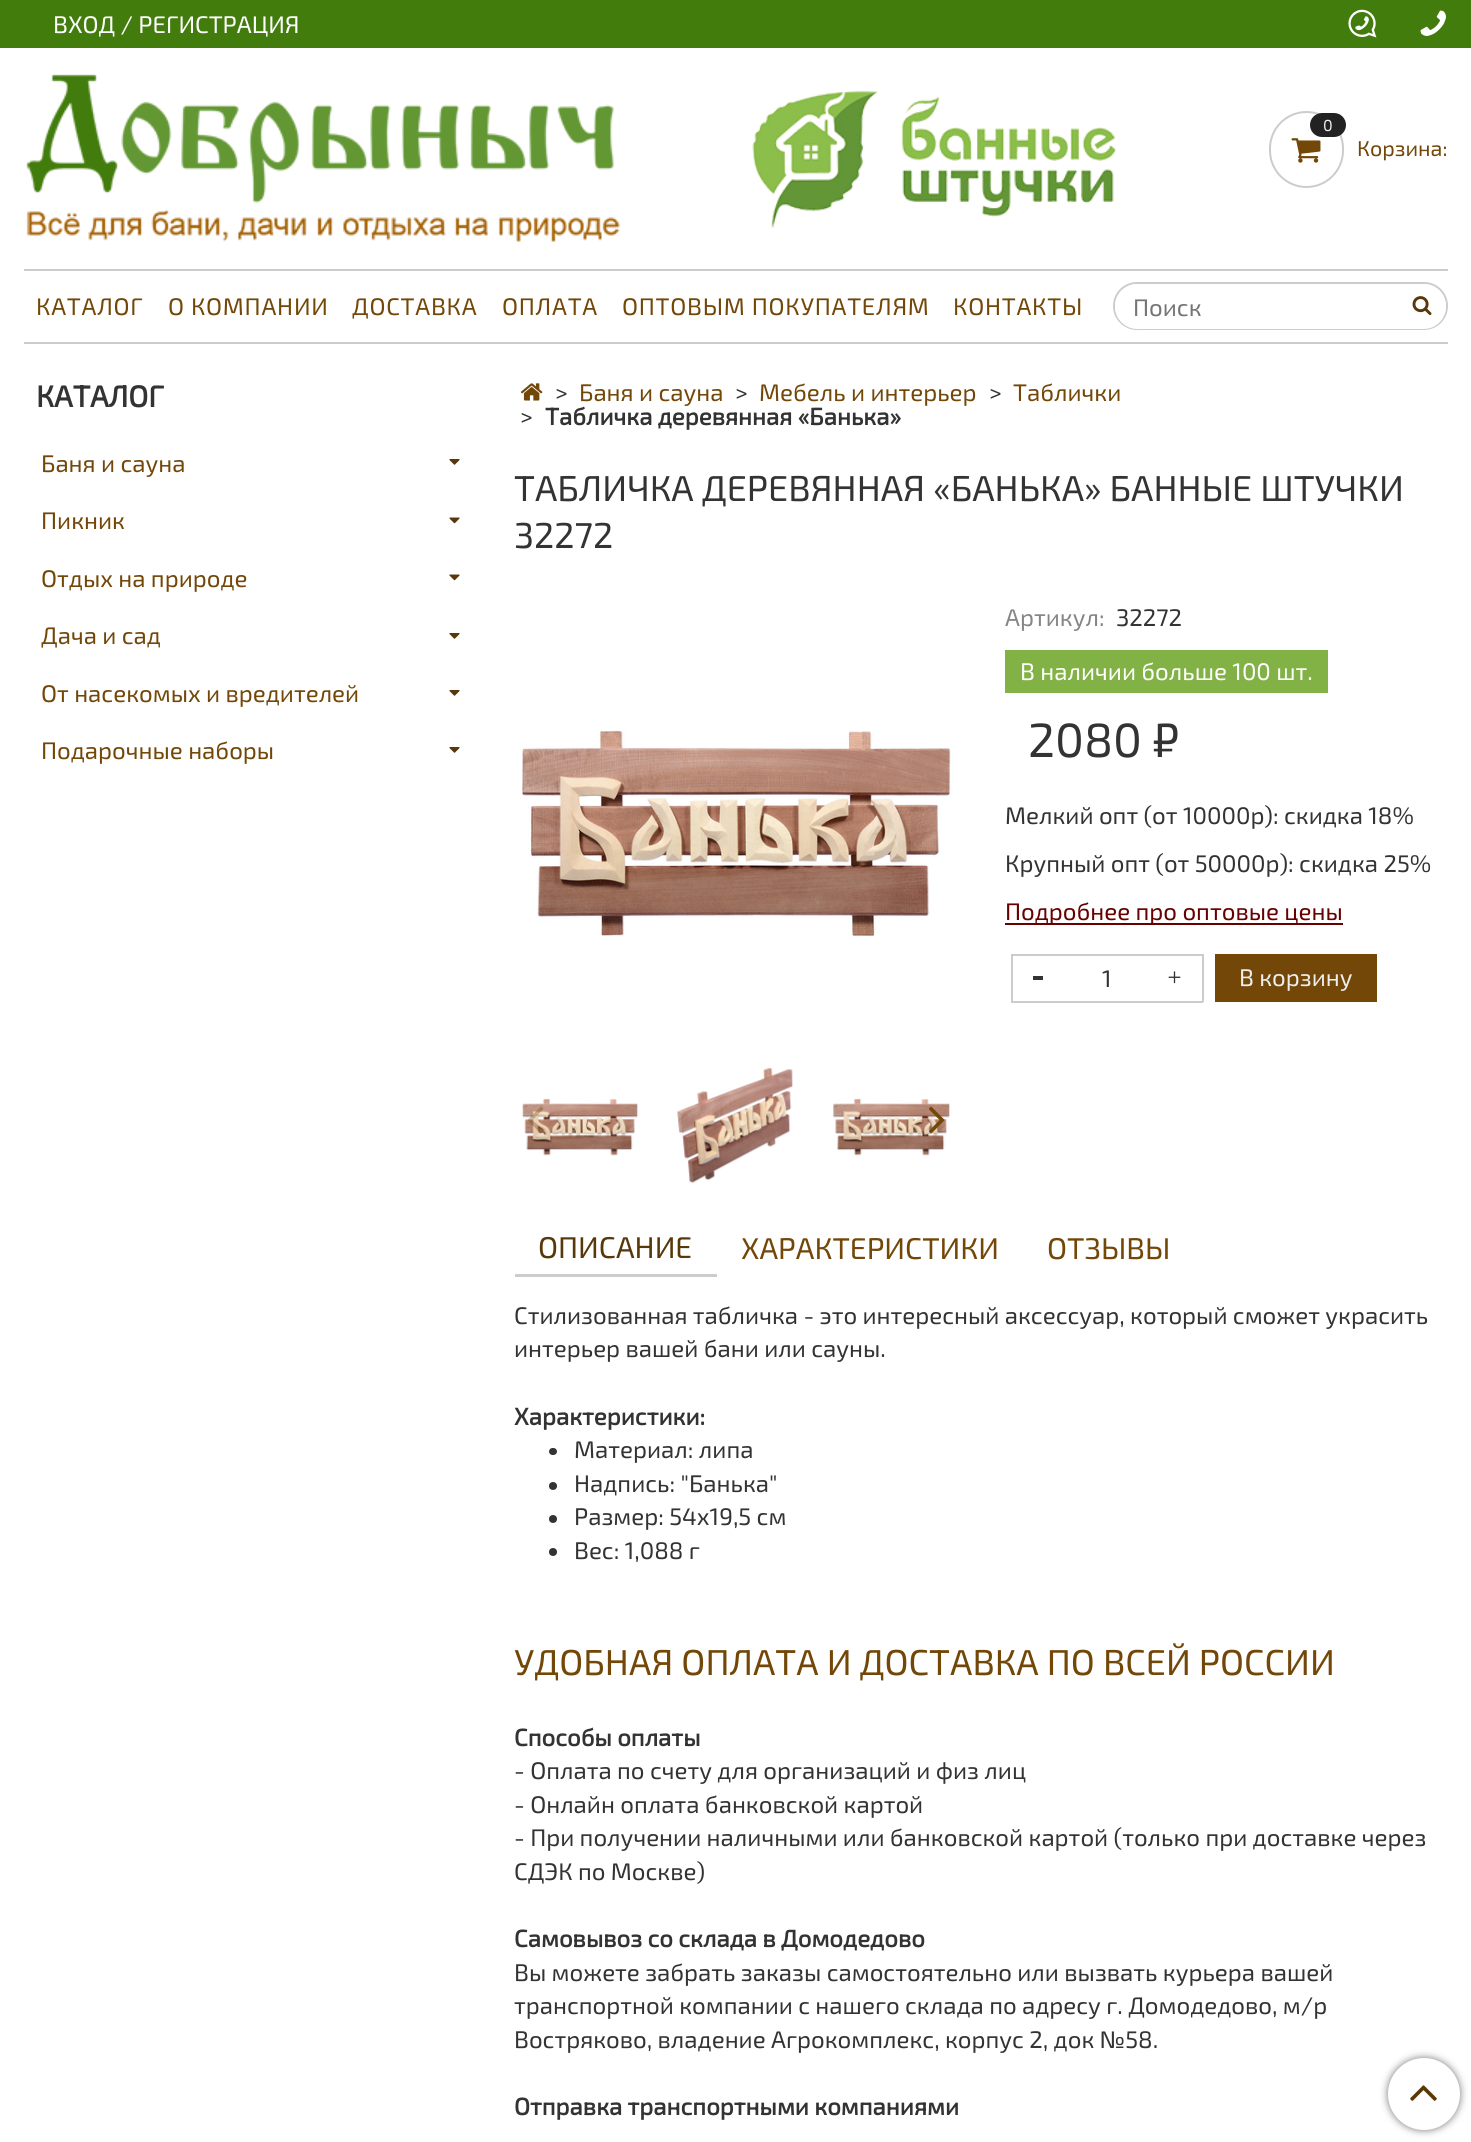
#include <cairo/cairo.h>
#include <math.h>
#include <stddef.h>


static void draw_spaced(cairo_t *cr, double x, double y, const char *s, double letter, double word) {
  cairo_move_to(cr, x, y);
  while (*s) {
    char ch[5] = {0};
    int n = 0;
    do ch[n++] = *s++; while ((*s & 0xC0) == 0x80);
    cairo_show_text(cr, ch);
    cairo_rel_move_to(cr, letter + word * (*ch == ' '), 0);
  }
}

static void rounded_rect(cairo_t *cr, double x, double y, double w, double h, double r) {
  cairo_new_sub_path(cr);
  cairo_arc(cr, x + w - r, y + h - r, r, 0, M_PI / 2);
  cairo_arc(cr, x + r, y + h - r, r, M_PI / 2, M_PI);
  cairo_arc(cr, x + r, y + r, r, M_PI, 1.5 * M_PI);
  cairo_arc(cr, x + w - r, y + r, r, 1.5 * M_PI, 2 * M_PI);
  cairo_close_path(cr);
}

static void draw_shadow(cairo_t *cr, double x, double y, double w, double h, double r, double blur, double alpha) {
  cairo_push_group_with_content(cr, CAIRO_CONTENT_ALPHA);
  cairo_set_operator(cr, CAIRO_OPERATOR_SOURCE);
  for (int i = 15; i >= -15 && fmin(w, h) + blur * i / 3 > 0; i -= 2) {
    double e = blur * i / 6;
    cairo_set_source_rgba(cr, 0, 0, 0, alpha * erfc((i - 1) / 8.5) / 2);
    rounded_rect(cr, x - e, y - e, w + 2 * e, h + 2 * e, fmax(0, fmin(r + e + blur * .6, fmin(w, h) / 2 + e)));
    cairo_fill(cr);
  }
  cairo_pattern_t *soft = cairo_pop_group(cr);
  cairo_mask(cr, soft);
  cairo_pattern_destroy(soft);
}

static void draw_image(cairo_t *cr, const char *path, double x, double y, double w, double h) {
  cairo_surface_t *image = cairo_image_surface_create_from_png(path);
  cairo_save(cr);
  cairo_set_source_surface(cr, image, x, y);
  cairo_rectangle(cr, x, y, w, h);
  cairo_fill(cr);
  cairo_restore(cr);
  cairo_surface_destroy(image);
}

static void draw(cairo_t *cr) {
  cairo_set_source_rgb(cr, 1, 1, 1);
  cairo_paint(cr);
  cairo_set_source_rgb(cr, 66 / 255.0, 124 / 255.0, 13 / 255.0);
  cairo_rectangle(cr, 0, 0, 1471, 48);
  cairo_fill(cr);
  draw_image(cr, "images/1.png", 1348, 9, 29, 29);
  draw_image(cr, "images/2.png", 1420, 10, 26, 26);
  draw_image(cr, "images/3.png", 26, 74, 594, 168);
  draw_image(cr, "images/4.png", 752, 90, 364, 138);
  rounded_rect(cr, 1270, 112, 73, 75, 36.5);
  cairo_set_source_rgb(cr, 204 / 255.0, 204 / 255.0, 204 / 255.0);
  cairo_stroke(cr);
  cairo_set_source_rgb(cr, 34 / 255.0, 34 / 255.0, 34 / 255.0);
  rounded_rect(cr, 1310, 113, 36, 24, 12);
  cairo_fill(cr);
  draw_image(cr, "images/5.png", 1291, 138, 30, 25);
  cairo_set_source_rgb(cr, 204 / 255.0, 204 / 255.0, 204 / 255.0);
  cairo_rectangle(cr, 24, 269, 1424, 2);
  cairo_fill(cr);
  cairo_rectangle(cr, 24, 342, 1424, 2);
  cairo_fill(cr);
  rounded_rect(cr, 1114, 283, 333, 46, 23);
  cairo_stroke(cr);
  cairo_set_source_rgb(cr, 1, 1, 1);
  cairo_new_path(cr);
  cairo_move_to(cr, 1137.5, 284);
  cairo_line_to(cr, 1398, 284);
  cairo_line_to(cr, 1398, 329);
  cairo_line_to(cr, 1137.5, 329);
  cairo_curve_to(cr, 1125, 329, 1115, 319, 1115, 306.5);
  cairo_curve_to(cr, 1115, 294, 1125, 284, 1137.5, 284);
  cairo_close_path(cr);
  cairo_fill(cr);
  cairo_new_path(cr);
  cairo_move_to(cr, 1398, 284);
  cairo_line_to(cr, 1423.5, 284);
  cairo_curve_to(cr, 1436, 284, 1446, 294, 1446, 306.5);
  cairo_curve_to(cr, 1446, 319, 1436, 329, 1423.5, 329);
  cairo_line_to(cr, 1398, 329);
  cairo_close_path(cr);
  cairo_fill(cr);
  draw_image(cr, "images/6.png", 1412, 296, 20, 19);
  draw_image(cr, "images/7.png", 449, 459, 11, 6);
  draw_image(cr, "images/8.png", 449, 517, 11, 7);
  draw_image(cr, "images/8.png", 449, 574, 11, 7);
  draw_image(cr, "images/7.png", 449, 633, 11, 6);
  draw_image(cr, "images/7.png", 449, 690, 11, 6);
  draw_image(cr, "images/7.png", 449, 747, 11, 6);
  draw_image(cr, "images/9.png", 520, 383, 23, 18);
  draw_image(cr, "images/10.png", 522, 730, 429, 208);
  draw_image(cr, "images/11.png", 522, 1098, 116, 58);
  draw_image(cr, "images/12.png", 677, 1067, 116, 116);
  draw_image(cr, "images/13.png", 833, 1098, 117, 58);
  draw_image(cr, "images/14.png", 527, 1106, 17, 28);
  draw_image(cr, "images/15.png", 928, 1106, 17, 28);
  cairo_set_source_rgb(cr, 130 / 255.0, 178 / 255.0, 69 / 255.0);
  cairo_rectangle(cr, 1005, 650, 323, 43);
  cairo_fill(cr);
  cairo_set_source_rgb(cr, 104 / 255.0, 0, 0);
  cairo_rectangle(cr, 1005, 923, 338, 2);
  cairo_fill(cr);
  cairo_set_source_rgb(cr, 204 / 255.0, 204 / 255.0, 204 / 255.0);
  cairo_rectangle(cr, 1011, 954, 192, 2);
  cairo_fill(cr);
  cairo_rectangle(cr, 1011, 1001, 150, 2);
  cairo_fill(cr);
  cairo_rectangle(cr, 1011, 954, 2, 48);
  cairo_fill(cr);
  cairo_set_source_rgb(cr, 51 / 255.0, 51 / 255.0, 51 / 255.0);
  cairo_rectangle(cr, 1033, 976, 10, 4);
  cairo_fill(cr);
  cairo_set_source_rgb(cr, 204 / 255.0, 204 / 255.0, 204 / 255.0);
  cairo_rectangle(cr, 1202, 954, 2, 48);
  cairo_fill(cr);
  cairo_rectangle(cr, 1161, 1001, 42, 2);
  cairo_fill(cr);
  draw_image(cr, "images/16.png", 1168, 971, 13, 13);
  cairo_set_source_rgb(cr, 114 / 255.0, 71 / 255.0, 8 / 255.0);
  cairo_rectangle(cr, 1215, 954, 162, 48);
  cairo_fill(cr);
  cairo_set_source_rgb(cr, 204 / 255.0, 204 / 255.0, 204 / 255.0);
  cairo_rectangle(cr, 515, 1274, 202, 3);
  cairo_fill(cr);
  cairo_set_source_rgb(cr, 51 / 255.0, 51 / 255.0, 51 / 255.0);
  rounded_rect(cr, 549, 1448, 8, 7, 3.5);
  cairo_fill(cr);
  cairo_arc(cr, 553, 1486, 4, 0, 2 * M_PI);
  cairo_fill(cr);
  cairo_arc(cr, 553, 1519, 4, 0, 2 * M_PI);
  cairo_fill(cr);
  cairo_arc(cr, 553, 1552, 4, 0, 2 * M_PI);
  cairo_fill(cr);
  cairo_set_source_rgb(cr, 119 / 255.0, 119 / 255.0, 119 / 255.0);
  draw_shadow(cr, 1388, 2058, 72, 72, 36, 4, 1);
  cairo_set_source_rgb(cr, 1, 1, 1);
  cairo_arc(cr, 1424, 2094, 36, 0, 2 * M_PI);
  cairo_fill(cr);
  draw_image(cr, "images/17.png", 1410, 2085, 27, 16);
  cairo_select_font_face(cr, "Exo 2", CAIRO_FONT_SLANT_NORMAL, CAIRO_FONT_WEIGHT_NORMAL);
  cairo_set_font_size(cr, 24);
  cairo_move_to(cr, 53, 33);
  cairo_show_text(cr, "ВХОД / РЕГИСТРАЦИЯ");
  cairo_set_font_size(cr, 16);
  cairo_set_source_rgb(cr, 238 / 255.0, 238 / 255.0, 238 / 255.0);
  cairo_move_to(cr, 1323, 131);
  cairo_show_text(cr, "0");
  cairo_set_font_size(cr, 21.5);
  cairo_set_source_rgb(cr, 114 / 255.0, 71 / 255.0, 8 / 255.0);
  cairo_move_to(cr, 1357, 156);
  cairo_show_text(cr, "Корзина:");
  cairo_set_font_size(cr, 24);
  draw_spaced(cr, 36, 315, "КАТАЛОГ", 0.75, 0);
  draw_spaced(cr, 168, 315, "О КОМПАНИИ", 0.75, 0);
  draw_spaced(cr, 352, 315, "ДОСТАВКА", 0.75, 0);
  draw_spaced(cr, 502, 315, "ОПЛАТА", 0.75, 0);
  draw_spaced(cr, 622, 315, "ОПТОВЫМ ПОКУПАТЕЛЯМ", 0.75, 0);
  draw_spaced(cr, 953, 315, "КОНТАКТЫ", 0.75, 0);
  cairo_set_source_rgb(cr, 117 / 255.0, 117 / 255.0, 117 / 255.0);
  cairo_move_to(cr, 1133, 316);
  cairo_show_text(cr, "Поиск");
  cairo_select_font_face(cr, "Exo 2", CAIRO_FONT_SLANT_NORMAL, CAIRO_FONT_WEIGHT_BOLD);
  cairo_set_font_size(cr, 30);
  cairo_set_source_rgb(cr, 51 / 255.0, 51 / 255.0, 51 / 255.0);
  cairo_move_to(cr, 36, 407);
  cairo_show_text(cr, "КАТАЛОГ");
  cairo_select_font_face(cr, "Exo 2", CAIRO_FONT_SLANT_NORMAL, CAIRO_FONT_WEIGHT_NORMAL);
  cairo_set_font_size(cr, 24);
  cairo_set_source_rgb(cr, 114 / 255.0, 71 / 255.0, 8 / 255.0);
  cairo_move_to(cr, 41, 472);
  cairo_show_text(cr, "Баня и сауна");
  cairo_move_to(cr, 41, 529);
  cairo_show_text(cr, "Пикник");
  cairo_move_to(cr, 41, 587);
  cairo_show_text(cr, "Отдых на природе");
  cairo_move_to(cr, 41, 644);
  cairo_show_text(cr, "Дача и сад");
  cairo_move_to(cr, 41, 702);
  cairo_show_text(cr, "От насекомых и вредителей");
  cairo_move_to(cr, 41, 759);
  cairo_show_text(cr, "Подарочные наборы");
  cairo_set_source_rgb(cr, 51 / 255.0, 51 / 255.0, 51 / 255.0);
  cairo_move_to(cr, 555, 401);
  cairo_show_text(cr, ">");
  cairo_set_source_rgb(cr, 114 / 255.0, 71 / 255.0, 8 / 255.0);
  cairo_move_to(cr, 579, 401);
  cairo_show_text(cr, "Баня и сауна");
  cairo_set_source_rgb(cr, 51 / 255.0, 51 / 255.0, 51 / 255.0);
  cairo_move_to(cr, 735, 401);
  cairo_show_text(cr, ">");
  cairo_set_source_rgb(cr, 114 / 255.0, 71 / 255.0, 8 / 255.0);
  cairo_move_to(cr, 759, 401);
  cairo_show_text(cr, "Мебель и интерьер");
  cairo_set_source_rgb(cr, 51 / 255.0, 51 / 255.0, 51 / 255.0);
  cairo_move_to(cr, 989, 401);
  cairo_show_text(cr, ">");
  cairo_set_source_rgb(cr, 114 / 255.0, 71 / 255.0, 8 / 255.0);
  cairo_move_to(cr, 1013, 401);
  cairo_show_text(cr, "Таблички");
  cairo_set_source_rgb(cr, 51 / 255.0, 51 / 255.0, 51 / 255.0);
  cairo_move_to(cr, 520, 425);
  cairo_show_text(cr, ">");
  cairo_select_font_face(cr, "Exo 2", CAIRO_FONT_SLANT_NORMAL, CAIRO_FONT_WEIGHT_BOLD);
  cairo_move_to(cr, 545, 425);
  cairo_show_text(cr, "Табличка деревянная «Банька»");
  cairo_select_font_face(cr, "Exo 2", CAIRO_FONT_SLANT_NORMAL, CAIRO_FONT_WEIGHT_NORMAL);
  cairo_set_font_size(cr, 36);
  cairo_move_to(cr, 514, 501);
  cairo_show_text(cr, "ТАБЛИЧКА ДЕРЕВЯННАЯ «БАНЬКА» БАННЫЕ ШТУЧКИ");
  cairo_move_to(cr, 514, 548);
  cairo_show_text(cr, "32272");
  cairo_set_font_size(cr, 24);
  cairo_set_source_rgb(cr, 133 / 255.0, 133 / 255.0, 133 / 255.0);
  cairo_move_to(cr, 1005, 626);
  cairo_show_text(cr, "Артикул:");
  cairo_set_source_rgb(cr, 51 / 255.0, 51 / 255.0, 51 / 255.0);
  cairo_move_to(cr, 1116, 626);
  cairo_show_text(cr, "32272");
  cairo_set_source_rgb(cr, 1, 1, 1);
  cairo_move_to(cr, 1020, 680);
  cairo_show_text(cr, "В наличии больше 100 шт.");
  cairo_set_font_size(cr, 48);
  cairo_set_source_rgb(cr, 51 / 255.0, 51 / 255.0, 51 / 255.0);
  cairo_move_to(cr, 1028, 757);
  cairo_show_text(cr, "2080 ₽");
  cairo_set_font_size(cr, 24);
  cairo_move_to(cr, 1005, 824);
  cairo_show_text(cr, "Мелкий опт (от 10000р): скидка 18%");
  cairo_move_to(cr, 1005, 872);
  cairo_show_text(cr, "Крупный опт (от 50000р): скидка 25%");
  cairo_set_source_rgb(cr, 104 / 255.0, 0, 0);
  cairo_move_to(cr, 1005, 920);
  cairo_show_text(cr, "Подробнее про оптовые цены");
  cairo_set_source_rgb(cr, 51 / 255.0, 51 / 255.0, 51 / 255.0);
  cairo_move_to(cr, 1102, 987);
  cairo_show_text(cr, "1");
  cairo_set_source_rgb(cr, 238 / 255.0, 238 / 255.0, 238 / 255.0);
  cairo_move_to(cr, 1239, 986);
  cairo_show_text(cr, "В корзину");
  cairo_set_font_size(cr, 30);
  cairo_set_source_rgb(cr, 88 / 255.0, 56 / 255.0, 10 / 255.0);
  cairo_move_to(cr, 538, 1258);
  cairo_show_text(cr, "ОПИСАНИЕ");
  cairo_set_source_rgb(cr, 114 / 255.0, 71 / 255.0, 8 / 255.0);
  cairo_move_to(cr, 741, 1259);
  cairo_show_text(cr, "ХАРАКТЕРИСТИКИ");
  cairo_move_to(cr, 1047, 1259);
  cairo_show_text(cr, "ОТЗЫВЫ");
  cairo_set_font_size(cr, 24);
  cairo_set_source_rgb(cr, 51 / 255.0, 51 / 255.0, 51 / 255.0);
  cairo_move_to(cr, 514, 1324);
  cairo_show_text(cr, "Стилизованная табличка - это интересный аксессуар, который сможет украсить");
  cairo_move_to(cr, 514, 1357);
  cairo_show_text(cr, "интерьер вашей бани или сауны.");
  cairo_select_font_face(cr, "Exo 2", CAIRO_FONT_SLANT_NORMAL, CAIRO_FONT_WEIGHT_BOLD);
  cairo_move_to(cr, 514, 1425);
  cairo_show_text(cr, "Характеристики:");
  cairo_select_font_face(cr, "Exo 2", CAIRO_FONT_SLANT_NORMAL, CAIRO_FONT_WEIGHT_NORMAL);
  cairo_move_to(cr, 574, 1458);
  cairo_show_text(cr, "Материал: липа");
  cairo_move_to(cr, 574, 1492);
  cairo_show_text(cr, "Надпись: \"Банька\"");
  cairo_move_to(cr, 574, 1525);
  cairo_show_text(cr, "Размер: 54х19,5 см");
  cairo_move_to(cr, 574, 1559);
  cairo_show_text(cr, "Вес: 1,088 г");
  cairo_set_font_size(cr, 36);
  cairo_set_source_rgb(cr, 114 / 255.0, 71 / 255.0, 8 / 255.0);
  cairo_move_to(cr, 514, 1675);
  cairo_show_text(cr, "УДОБНАЯ ОПЛАТА И ДОСТАВКА ПО ВСЕЙ РОССИИ");
  cairo_select_font_face(cr, "Exo 2", CAIRO_FONT_SLANT_NORMAL, CAIRO_FONT_WEIGHT_BOLD);
  cairo_set_font_size(cr, 24);
  cairo_set_source_rgb(cr, 51 / 255.0, 51 / 255.0, 51 / 255.0);
  cairo_move_to(cr, 514, 1746);
  cairo_show_text(cr, "Способы оплаты");
  cairo_select_font_face(cr, "Exo 2", CAIRO_FONT_SLANT_NORMAL, CAIRO_FONT_WEIGHT_NORMAL);
  cairo_move_to(cr, 514, 1779);
  cairo_show_text(cr, "- Оплата по счету для организаций и физ лиц");
  cairo_move_to(cr, 514, 1813);
  cairo_show_text(cr, "- Онлайн оплата банковской картой");
  cairo_move_to(cr, 514, 1846);
  cairo_show_text(cr, "- При получении наличными или банковской картой (только при доставке через");
  cairo_move_to(cr, 514, 1880);
  cairo_show_text(cr, "СДЭК по Москве)");
  cairo_select_font_face(cr, "Exo 2", CAIRO_FONT_SLANT_NORMAL, CAIRO_FONT_WEIGHT_BOLD);
  cairo_move_to(cr, 514, 1947);
  cairo_show_text(cr, "Самовывоз со склада в Домодедово");
  cairo_select_font_face(cr, "Exo 2", CAIRO_FONT_SLANT_NORMAL, CAIRO_FONT_WEIGHT_NORMAL);
  cairo_move_to(cr, 514, 1981);
  cairo_show_text(cr, "Вы можете забрать заказы самостоятельно или вызвать курьера вашей");
  cairo_move_to(cr, 514, 2014);
  cairo_show_text(cr, "транспортной компании с нашего склада по адресу г. Домодедово, м/р");
  cairo_move_to(cr, 514, 2048);
  cairo_show_text(cr, "Востряково, владение Агрокомплекс, корпус 2, док №58.");
  cairo_select_font_face(cr, "Exo 2", CAIRO_FONT_SLANT_NORMAL, CAIRO_FONT_WEIGHT_BOLD);
  cairo_move_to(cr, 514, 2115);
  cairo_show_text(cr, "Отправка транспортными компаниями");
}

int main(void) {
  cairo_surface_t *surface = cairo_image_surface_create(CAIRO_FORMAT_RGB24, 1471, 2142);
  cairo_t *cr = cairo_create(surface);
  cairo_font_options_t *options = cairo_font_options_create();
  cairo_font_options_set_hint_metrics(options, CAIRO_HINT_METRICS_OFF);
  cairo_font_options_set_hint_style(options, CAIRO_HINT_STYLE_NONE);
  cairo_set_font_options(cr, options);
  cairo_set_miter_limit(cr, 4);
  draw(cr);
  cairo_surface_write_to_png(surface, "out.png");
  cairo_font_options_destroy(options);
  cairo_destroy(cr);
  cairo_surface_destroy(surface);
  return 0;
}
